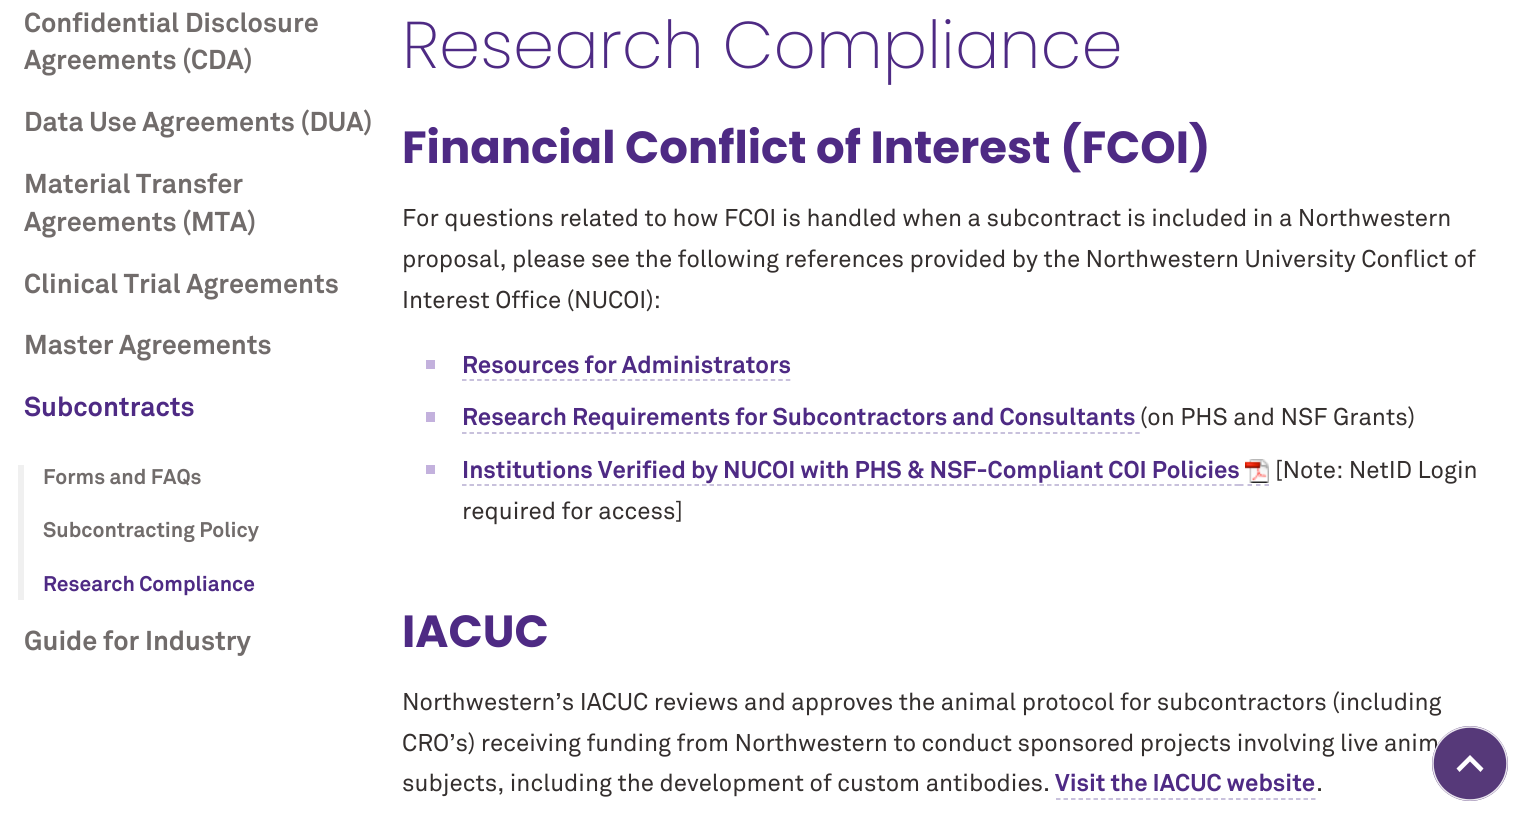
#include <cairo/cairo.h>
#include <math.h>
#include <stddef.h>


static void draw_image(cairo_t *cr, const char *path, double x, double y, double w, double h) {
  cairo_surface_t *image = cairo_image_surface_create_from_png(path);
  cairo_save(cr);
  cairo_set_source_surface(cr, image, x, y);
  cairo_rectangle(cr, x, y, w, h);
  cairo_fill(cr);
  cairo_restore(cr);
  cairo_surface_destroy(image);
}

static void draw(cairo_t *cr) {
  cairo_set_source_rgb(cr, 1, 1, 1);
  cairo_paint(cr);
  cairo_set_source_rgb(cr, 240 / 255.0, 240 / 255.0, 240 / 255.0);
  cairo_rectangle(cr, 18, 465, 6, 135);
  cairo_fill(cr);
  cairo_set_source_rgb(cr, 195 / 255.0, 177 / 255.0, 221 / 255.0);
  cairo_rectangle(cr, 426, 360, 9, 9);
  cairo_fill(cr);
  cairo_new_path(cr);
  cairo_move_to(cr, 462, 380);
  cairo_line_to(cr, 790.5, 380);
  cairo_set_source_rgb(cr, 182 / 255.0, 172 / 255.0, 209 / 255.0);
  cairo_set_line_width(cr, 1.5);
  cairo_set_dash(cr, (double[]){4.5, 3.03}, 2, 0);
  cairo_stroke(cr);
  cairo_set_source_rgb(cr, 195 / 255.0, 177 / 255.0, 221 / 255.0);
  cairo_rectangle(cr, 426, 412, 9, 10);
  cairo_fill(cr);
  cairo_new_path(cr);
  cairo_move_to(cr, 462, 433);
  cairo_line_to(cr, 1140, 433);
  cairo_set_source_rgb(cr, 182 / 255.0, 172 / 255.0, 209 / 255.0);
  cairo_set_dash(cr, (double[]){4.5, 2.98}, 2, 0);
  cairo_stroke(cr);
  cairo_set_source_rgb(cr, 195 / 255.0, 177 / 255.0, 221 / 255.0);
  cairo_rectangle(cr, 426, 465, 9, 9);
  cairo_fill(cr);
  cairo_new_path(cr);
  cairo_move_to(cr, 462, 485);
  cairo_line_to(cr, 1239, 485);
  cairo_set_source_rgb(cr, 182 / 255.0, 172 / 255.0, 209 / 255.0);
  cairo_set_dash(cr, (double[]){4.5, 3}, 2, 0);
  cairo_stroke(cr);
  cairo_new_path(cr);
  cairo_move_to(cr, 1239, 485);
  cairo_line_to(cr, 1269, 485);
  cairo_set_dash(cr, (double[]){4.5, 4}, 2, 0);
  cairo_stroke(cr);
  draw_image(cr, "images/1.png", 1245, 459, 24, 24);
  cairo_new_path(cr);
  cairo_move_to(cr, 1056, 799);
  cairo_line_to(cr, 1315.5, 799);
  cairo_set_dash(cr, (double[]){4.5, 3}, 2, 0);
  cairo_stroke(cr);
  cairo_select_font_face(cr, "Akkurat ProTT", CAIRO_FONT_SLANT_NORMAL, CAIRO_FONT_WEIGHT_BOLD);
  cairo_set_font_size(cr, 27);
  cairo_set_source_rgb(cr, 113 / 255.0, 108 / 255.0, 107 / 255.0);
  cairo_move_to(cr, 24, 32);
  cairo_show_text(cr, "Confidential Disclosure");
  cairo_move_to(cr, 24, 69);
  cairo_show_text(cr, "Agreements (CDA)");
  cairo_move_to(cr, 24, 131);
  cairo_show_text(cr, "Data Use Agreements (DUA)");
  cairo_move_to(cr, 24, 193);
  cairo_show_text(cr, "Material Transfer");
  cairo_move_to(cr, 24, 231);
  cairo_show_text(cr, "Agreements (MTA)");
  cairo_move_to(cr, 24, 293);
  cairo_show_text(cr, "Clinical Trial Agreements");
  cairo_move_to(cr, 24, 354);
  cairo_show_text(cr, "Master Agreements");
  cairo_set_source_rgb(cr, 78 / 255.0, 42 / 255.0, 132 / 255.0);
  cairo_move_to(cr, 24, 416);
  cairo_show_text(cr, "Subcontracts");
  cairo_set_font_size(cr, 21);
  cairo_set_source_rgb(cr, 113 / 255.0, 108 / 255.0, 107 / 255.0);
  cairo_move_to(cr, 43, 484);
  cairo_show_text(cr, "Forms and FAQs");
  cairo_move_to(cr, 43, 537);
  cairo_show_text(cr, "Subcontracting Policy");
  cairo_set_source_rgb(cr, 78 / 255.0, 42 / 255.0, 132 / 255.0);
  cairo_move_to(cr, 43, 591);
  cairo_show_text(cr, "Research Compliance");
  cairo_set_font_size(cr, 27);
  cairo_set_source_rgb(cr, 113 / 255.0, 108 / 255.0, 107 / 255.0);
  cairo_move_to(cr, 24, 650);
  cairo_show_text(cr, "Guide for Industry");
  cairo_select_font_face(cr, "Poppins ExtraLight", CAIRO_FONT_SLANT_NORMAL, CAIRO_FONT_WEIGHT_NORMAL);
  cairo_set_font_size(cr, 66);
  cairo_set_source_rgb(cr, 78 / 255.0, 42 / 255.0, 132 / 255.0);
  cairo_move_to(cr, 402, 68);
  cairo_show_text(cr, "Research Compliance");
  cairo_select_font_face(cr, "Poppins", CAIRO_FONT_SLANT_NORMAL, CAIRO_FONT_WEIGHT_BOLD);
  cairo_set_font_size(cr, 45);
  cairo_move_to(cr, 402, 163);
  cairo_show_text(cr, "Financial Conflict of Interest (FCOI)");
  cairo_select_font_face(cr, "Akkurat ProTT", CAIRO_FONT_SLANT_NORMAL, CAIRO_FONT_WEIGHT_NORMAL);
  cairo_set_font_size(cr, 24);
  cairo_set_source_rgb(cr, 52 / 255.0, 47 / 255.0, 46 / 255.0);
  cairo_move_to(cr, 402, 226);
  cairo_show_text(cr, "For questions related to how FCOI is handled when a subcontract is included in a Northwestern");
  cairo_move_to(cr, 402, 267);
  cairo_show_text(cr, "proposal, please see the following references provided by the Northwestern University Conflict of");
  cairo_move_to(cr, 402, 308);
  cairo_show_text(cr, "Interest Office (NUCOI):");
  cairo_select_font_face(cr, "Akkurat ProTT", CAIRO_FONT_SLANT_NORMAL, CAIRO_FONT_WEIGHT_BOLD);
  cairo_set_source_rgb(cr, 78 / 255.0, 42 / 255.0, 132 / 255.0);
  cairo_move_to(cr, 462, 373);
  cairo_show_text(cr, "Resources for Administrators");
  cairo_move_to(cr, 462, 425);
  cairo_show_text(cr, "Research Requirements for Subcontractors and Consultants");
  cairo_select_font_face(cr, "Akkurat ProTT", CAIRO_FONT_SLANT_NORMAL, CAIRO_FONT_WEIGHT_NORMAL);
  cairo_set_source_rgb(cr, 52 / 255.0, 47 / 255.0, 46 / 255.0);
  cairo_move_to(cr, 1140, 425);
  cairo_show_text(cr, "(on PHS and NSF Grants)");
  cairo_select_font_face(cr, "Akkurat ProTT", CAIRO_FONT_SLANT_NORMAL, CAIRO_FONT_WEIGHT_BOLD);
  cairo_set_source_rgb(cr, 78 / 255.0, 42 / 255.0, 132 / 255.0);
  cairo_move_to(cr, 462, 478);
  cairo_show_text(cr, "Institutions Verified by NUCOI with PHS & NSF-Compliant COI Policies");
  cairo_select_font_face(cr, "Akkurat ProTT", CAIRO_FONT_SLANT_NORMAL, CAIRO_FONT_WEIGHT_NORMAL);
  cairo_set_source_rgb(cr, 52 / 255.0, 47 / 255.0, 46 / 255.0);
  cairo_move_to(cr, 1275, 478);
  cairo_show_text(cr, "[Note: NetID Login");
  cairo_move_to(cr, 462, 519);
  cairo_show_text(cr, "required for access]");
  cairo_select_font_face(cr, "Poppins", CAIRO_FONT_SLANT_NORMAL, CAIRO_FONT_WEIGHT_BOLD);
  cairo_set_font_size(cr, 45);
  cairo_set_source_rgb(cr, 78 / 255.0, 42 / 255.0, 132 / 255.0);
  cairo_move_to(cr, 402, 647);
  cairo_show_text(cr, "IACUC");
  cairo_select_font_face(cr, "Akkurat ProTT", CAIRO_FONT_SLANT_NORMAL, CAIRO_FONT_WEIGHT_NORMAL);
  cairo_set_font_size(cr, 24);
  cairo_set_source_rgb(cr, 52 / 255.0, 47 / 255.0, 46 / 255.0);
  cairo_move_to(cr, 402, 710);
  cairo_show_text(cr, "Northwestern’s IACUC reviews and approves the animal protocol for subcontractors (including");
  cairo_move_to(cr, 402, 751);
  cairo_show_text(cr, "CRO’s) receiving funding from Northwestern to conduct sponsored projects involving live anim");
  cairo_move_to(cr, 402, 791);
  cairo_show_text(cr, "subjects, including the development of custom antibodies.");
  cairo_select_font_face(cr, "Akkurat ProTT", CAIRO_FONT_SLANT_NORMAL, CAIRO_FONT_WEIGHT_BOLD);
  cairo_set_source_rgb(cr, 78 / 255.0, 42 / 255.0, 132 / 255.0);
  cairo_move_to(cr, 1055, 791);
  cairo_show_text(cr, "Visit the IACUC website");
  cairo_select_font_face(cr, "Akkurat ProTT", CAIRO_FONT_SLANT_NORMAL, CAIRO_FONT_WEIGHT_NORMAL);
  cairo_set_source_rgb(cr, 52 / 255.0, 47 / 255.0, 46 / 255.0);
  cairo_move_to(cr, 1316, 791);
  cairo_show_text(cr, ".");
  cairo_set_source_rgba(cr, 64 / 255.0, 31 / 255.0, 104 / 255.0, 0.88);
  cairo_new_path(cr);
  cairo_move_to(cr, 1432, 764);
  cairo_curve_to(cr, 1432, 743, 1449, 726, 1470, 726);
  cairo_curve_to(cr, 1491, 726, 1508, 743, 1508, 764);
  cairo_curve_to(cr, 1508, 784, 1491, 801, 1470, 801);
  cairo_curve_to(cr, 1449, 801, 1432, 784, 1432, 764);
  cairo_close_path(cr);
  cairo_fill(cr);
  cairo_set_source_rgb(cr, 1, 1, 1);
  cairo_new_path(cr);
  cairo_move_to(cr, 1480.5, 772);
  cairo_line_to(cr, 1470, 761.5);
  cairo_line_to(cr, 1459.5, 772);
  cairo_line_to(cr, 1456.5, 768.5);
  cairo_line_to(cr, 1470, 755);
  cairo_line_to(cr, 1483.5, 768.5);
  cairo_close_path(cr);
  cairo_fill(cr);
  cairo_new_path(cr);
  cairo_move_to(cr, 1433, 763.5);
  cairo_curve_to(cr, 1433, 743, 1449.5, 727, 1470, 727);
  cairo_curve_to(cr, 1490.5, 727, 1507, 743, 1507, 763.5);
  cairo_curve_to(cr, 1507, 784, 1490.5, 800, 1470, 800);
  cairo_curve_to(cr, 1449.5, 800, 1433, 784, 1433, 763.5);
  cairo_close_path(cr);
  cairo_set_source_rgba(cr, 1, 1, 1, 0.88);
  cairo_set_dash(cr, NULL, 0, 0);
  cairo_stroke(cr);
}

int main(void) {
  cairo_surface_t *surface = cairo_image_surface_create(CAIRO_FORMAT_RGB24, 1537, 825);
  cairo_t *cr = cairo_create(surface);
  cairo_font_options_t *options = cairo_font_options_create();
  cairo_font_options_set_hint_metrics(options, CAIRO_HINT_METRICS_OFF);
  cairo_font_options_set_hint_style(options, CAIRO_HINT_STYLE_NONE);
  cairo_set_font_options(cr, options);
  cairo_set_miter_limit(cr, 4);
  draw(cr);
  cairo_surface_write_to_png(surface, "out.png");
  cairo_font_options_destroy(options);
  cairo_destroy(cr);
  cairo_surface_destroy(surface);
  return 0;
}
